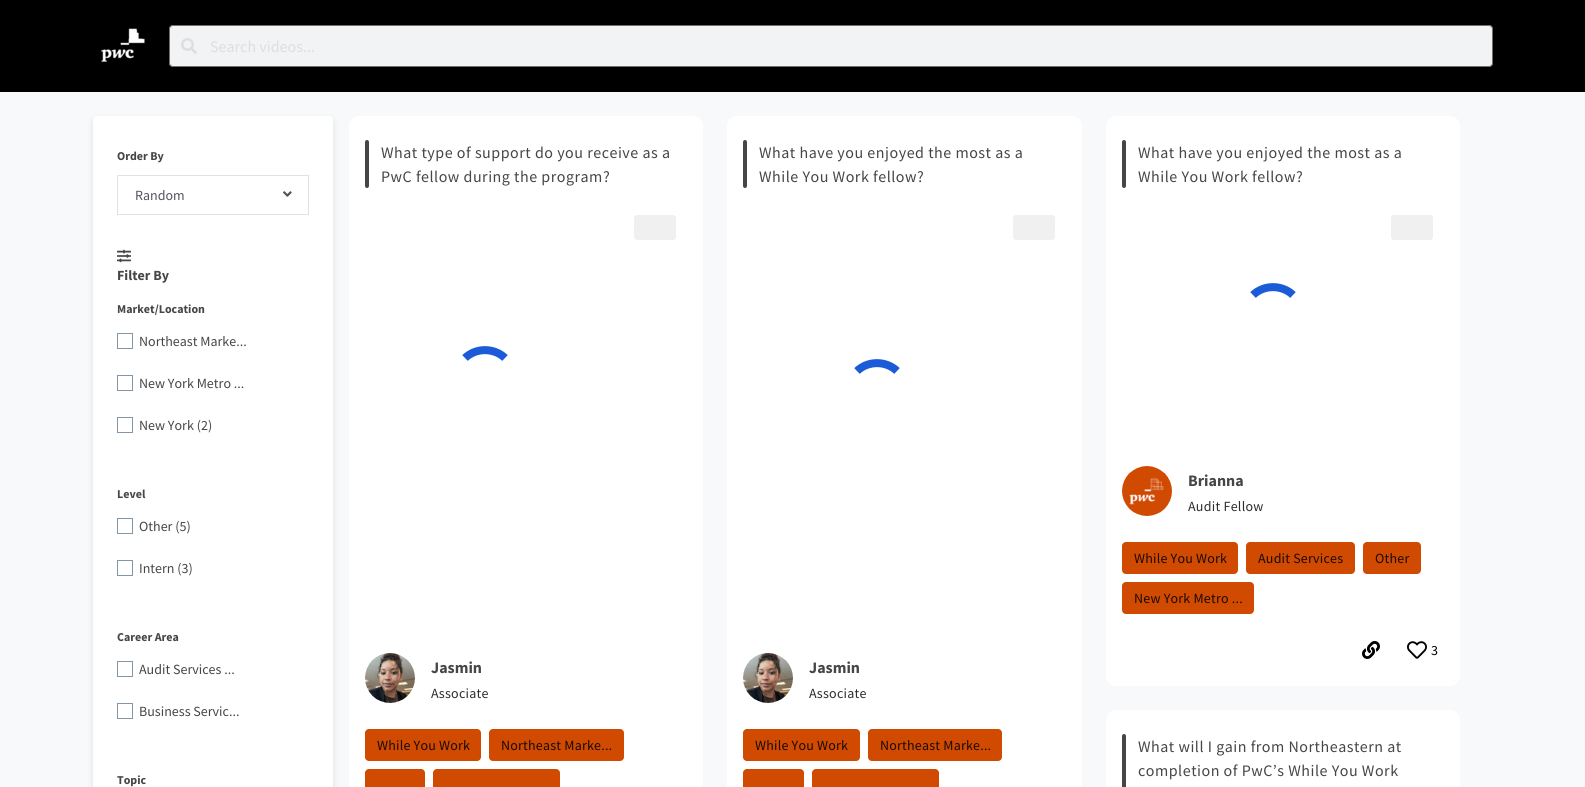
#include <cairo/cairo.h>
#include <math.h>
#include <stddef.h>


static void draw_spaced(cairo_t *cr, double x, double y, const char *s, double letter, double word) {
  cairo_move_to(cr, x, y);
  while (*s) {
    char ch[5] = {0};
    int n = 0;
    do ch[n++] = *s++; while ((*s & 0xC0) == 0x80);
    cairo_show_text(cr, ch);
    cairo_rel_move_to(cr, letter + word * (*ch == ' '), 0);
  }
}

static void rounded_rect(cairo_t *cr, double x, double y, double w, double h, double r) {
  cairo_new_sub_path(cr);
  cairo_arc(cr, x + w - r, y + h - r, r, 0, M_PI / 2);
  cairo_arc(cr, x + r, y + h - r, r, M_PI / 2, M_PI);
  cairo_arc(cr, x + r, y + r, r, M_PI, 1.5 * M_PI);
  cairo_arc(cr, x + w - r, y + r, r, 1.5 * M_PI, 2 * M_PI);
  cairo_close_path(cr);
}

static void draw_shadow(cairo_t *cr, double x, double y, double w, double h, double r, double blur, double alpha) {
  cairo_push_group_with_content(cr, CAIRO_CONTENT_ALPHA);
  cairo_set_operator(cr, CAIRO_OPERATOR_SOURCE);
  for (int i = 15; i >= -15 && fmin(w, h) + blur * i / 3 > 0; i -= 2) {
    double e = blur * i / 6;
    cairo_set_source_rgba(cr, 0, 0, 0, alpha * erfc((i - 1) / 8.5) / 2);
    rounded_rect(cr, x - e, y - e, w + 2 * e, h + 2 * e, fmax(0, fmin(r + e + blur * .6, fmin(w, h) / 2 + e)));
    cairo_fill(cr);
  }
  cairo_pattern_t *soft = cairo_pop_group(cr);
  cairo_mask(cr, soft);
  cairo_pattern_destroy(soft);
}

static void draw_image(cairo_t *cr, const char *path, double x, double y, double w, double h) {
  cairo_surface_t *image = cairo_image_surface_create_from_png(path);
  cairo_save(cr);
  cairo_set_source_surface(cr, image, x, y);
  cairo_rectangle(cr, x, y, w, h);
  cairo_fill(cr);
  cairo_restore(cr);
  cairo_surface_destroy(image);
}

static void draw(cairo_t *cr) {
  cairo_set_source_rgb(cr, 247 / 255.0, 249 / 255.0, 250 / 255.0);
  cairo_paint(cr);
  cairo_set_source_rgb(cr, 0, 0, 0);
  cairo_rectangle(cr, 0, 0, 1585, 92);
  cairo_fill(cr);
  draw_image(cr, "images/1.png", 101, 28, 44, 34);
  cairo_set_source_rgb(cr, 241 / 255.0, 243 / 255.0, 245 / 255.0);
  rounded_rect(cr, 169, 25, 1324, 42, 4);
  cairo_fill(cr);
  rounded_rect(cr, 169.5, 25.5, 1323, 41, 3.5);
  cairo_set_source_rgba(cr, 0, 0, 0, 0.54);
  cairo_set_line_width(cr, 1);
  cairo_stroke(cr);
  draw_image(cr, "images/2.png", 181, 38, 16, 16);
  cairo_set_source_rgb(cr, 0, 0, 0);
  draw_shadow(cr, 93, 119, 240, 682, 3, 3.5, 0.1);
  cairo_set_source_rgb(cr, 1, 1, 1);
  rounded_rect(cr, 93, 116, 240, 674, 3);
  cairo_fill(cr);
  cairo_rectangle(cr, 117.5, 175.5, 191, 39);
  cairo_set_source_rgb(cr, 221 / 255.0, 226 / 255.0, 230 / 255.0);
  cairo_stroke(cr);
  draw_image(cr, "images/3.png", 283, 191, 9, 6);
  draw_image(cr, "images/4.png", 117, 249, 14, 14);
  cairo_rectangle(cr, 117.5, 333.5, 15, 15);
  cairo_set_source_rgb(cr, 131 / 255.0, 150 / 255.0, 165 / 255.0);
  cairo_stroke(cr);
  cairo_rectangle(cr, 117.5, 375.5, 15, 15);
  cairo_stroke(cr);
  cairo_rectangle(cr, 117.5, 417.5, 15, 15);
  cairo_stroke(cr);
  cairo_rectangle(cr, 117.5, 518.5, 15, 15);
  cairo_stroke(cr);
  cairo_rectangle(cr, 117.5, 560.5, 15, 15);
  cairo_stroke(cr);
  cairo_rectangle(cr, 117.5, 661.5, 15, 15);
  cairo_stroke(cr);
  cairo_rectangle(cr, 117.5, 703.5, 15, 15);
  cairo_stroke(cr);
  cairo_set_source_rgb(cr, 1, 1, 1);
  rounded_rect(cr, 349, 116, 354, 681, 10);
  cairo_fill(cr);
  cairo_set_source_rgb(cr, 70 / 255.0, 70 / 255.0, 70 / 255.0);
  rounded_rect(cr, 365, 140, 4, 48, 2);
  cairo_fill(cr);
  cairo_set_source_rgb(cr, 102 / 255.0, 102 / 255.0, 102 / 255.0);
  rounded_rect(cr, 634, 215, 42, 25, 3);
  cairo_fill(cr);
  cairo_set_source_rgba(cr, 1, 1, 1, 0.9);
  rounded_rect(cr, 365, 204, 322, 429, 9);
  cairo_fill(cr);
  cairo_new_path(cr);
  cairo_move_to(cr, 465, 358);
  cairo_curve_to(cr, 476, 347.5, 494, 347.5, 505, 358);
  cairo_move_to(cr, 465, 358);
  cairo_curve_to(cr, 476, 347.5, 494, 347.5, 505, 358);
  cairo_move_to(cr, 465, 358);
  cairo_curve_to(cr, 476, 347.5, 494, 347.5, 505, 358);
  cairo_move_to(cr, 465, 358);
  cairo_curve_to(cr, 476, 347.5, 494, 347.5, 505, 358);
  cairo_set_source_rgb(cr, 27 / 255.0, 91 / 255.0, 216 / 255.0);
  cairo_set_line_width(cr, 8);
  cairo_stroke(cr);
  draw_image(cr, "images/5.png", 365, 653, 50, 50);
  cairo_set_source_rgb(cr, 208 / 255.0, 74 / 255.0, 2 / 255.0);
  rounded_rect(cr, 365, 729, 116, 32, 4);
  cairo_fill(cr);
  rounded_rect(cr, 489, 729, 135, 32, 4);
  cairo_fill(cr);
  rounded_rect(cr, 365, 769, 60, 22, 4);
  cairo_fill(cr);
  rounded_rect(cr, 433, 769, 127, 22, 4);
  cairo_fill(cr);
  cairo_set_source_rgb(cr, 1, 1, 1);
  rounded_rect(cr, 727, 116, 355, 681, 10);
  cairo_fill(cr);
  cairo_set_source_rgb(cr, 70 / 255.0, 70 / 255.0, 70 / 255.0);
  rounded_rect(cr, 743, 140, 4, 48, 2);
  cairo_fill(cr);
  cairo_set_source_rgb(cr, 102 / 255.0, 102 / 255.0, 102 / 255.0);
  rounded_rect(cr, 1013, 215, 42, 25, 3);
  cairo_fill(cr);
  cairo_set_source_rgba(cr, 1, 1, 1, 0.9);
  rounded_rect(cr, 743, 204, 323, 429, 9);
  cairo_fill(cr);
  cairo_new_path(cr);
  cairo_move_to(cr, 857, 371);
  cairo_curve_to(cr, 868, 360.5, 886, 360.5, 897, 371);
  cairo_move_to(cr, 857, 371);
  cairo_curve_to(cr, 868, 360.5, 886, 360.5, 897, 371);
  cairo_move_to(cr, 857, 371);
  cairo_curve_to(cr, 868, 360.5, 886, 360.5, 897, 371);
  cairo_move_to(cr, 857, 371);
  cairo_curve_to(cr, 868, 360.5, 886, 360.5, 897, 371);
  cairo_set_source_rgb(cr, 27 / 255.0, 91 / 255.0, 216 / 255.0);
  cairo_stroke(cr);
  draw_image(cr, "images/6.png", 743, 653, 50, 50);
  cairo_set_source_rgb(cr, 208 / 255.0, 74 / 255.0, 2 / 255.0);
  rounded_rect(cr, 743, 729, 117, 32, 4);
  cairo_fill(cr);
  rounded_rect(cr, 868, 729, 134, 32, 4);
  cairo_fill(cr);
  rounded_rect(cr, 743, 769, 61, 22, 4);
  cairo_fill(cr);
  rounded_rect(cr, 812, 769, 127, 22, 4);
  cairo_fill(cr);
  cairo_set_source_rgb(cr, 1, 1, 1);
  rounded_rect(cr, 1106, 116, 354, 570, 10);
  cairo_fill(cr);
  cairo_set_source_rgb(cr, 70 / 255.0, 70 / 255.0, 70 / 255.0);
  rounded_rect(cr, 1122, 140, 4, 48, 2);
  cairo_fill(cr);
  cairo_set_source_rgb(cr, 102 / 255.0, 102 / 255.0, 102 / 255.0);
  rounded_rect(cr, 1391, 215, 42, 25, 3);
  cairo_fill(cr);
  cairo_set_source_rgba(cr, 1, 1, 1, 0.9);
  rounded_rect(cr, 1122, 204, 322, 242, 9);
  cairo_fill(cr);
  cairo_new_path(cr);
  cairo_move_to(cr, 1253, 295);
  cairo_curve_to(cr, 1264, 284.5, 1282, 284.5, 1293, 295);
  cairo_move_to(cr, 1253, 295);
  cairo_curve_to(cr, 1264, 284.5, 1282, 284.5, 1293, 295);
  cairo_move_to(cr, 1253, 295);
  cairo_curve_to(cr, 1264, 284.5, 1282, 284.5, 1293, 295);
  cairo_move_to(cr, 1253, 295);
  cairo_curve_to(cr, 1264, 284.5, 1282, 284.5, 1293, 295);
  cairo_set_source_rgb(cr, 27 / 255.0, 91 / 255.0, 216 / 255.0);
  cairo_stroke(cr);
  draw_image(cr, "images/7.png", 1122, 466, 50, 50);
  cairo_set_source_rgb(cr, 208 / 255.0, 74 / 255.0, 2 / 255.0);
  rounded_rect(cr, 1122, 542, 116, 32, 4);
  cairo_fill(cr);
  rounded_rect(cr, 1246, 542, 109, 32, 4);
  cairo_fill(cr);
  rounded_rect(cr, 1363, 542, 58, 32, 4);
  cairo_fill(cr);
  rounded_rect(cr, 1122, 582, 132, 32, 4);
  cairo_fill(cr);
  draw_image(cr, "images/8.png", 1362, 641, 18, 18);
  draw_image(cr, "images/9.png", 1407, 641, 20, 18);
  cairo_set_source_rgb(cr, 1, 1, 1);
  rounded_rect(cr, 1106, 710, 354, 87, 10);
  cairo_fill(cr);
  cairo_set_source_rgb(cr, 70 / 255.0, 70 / 255.0, 70 / 255.0);
  rounded_rect(cr, 1122, 734, 4, 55, 2);
  cairo_fill(cr);
  cairo_select_font_face(cr, "Source Sans Pro", CAIRO_FONT_SLANT_NORMAL, CAIRO_FONT_WEIGHT_NORMAL);
  cairo_set_font_size(cr, 16);
  cairo_set_source_rgb(cr, 222 / 255.0, 222 / 255.0, 222 / 255.0);
  cairo_move_to(cr, 210, 52);
  cairo_show_text(cr, "Search videos...");
  cairo_select_font_face(cr, "Source Sans Pro", CAIRO_FONT_SLANT_NORMAL, CAIRO_FONT_WEIGHT_BOLD);
  cairo_set_font_size(cr, 12);
  cairo_set_source_rgb(cr, 70 / 255.0, 70 / 255.0, 70 / 255.0);
  cairo_move_to(cr, 117, 160);
  cairo_show_text(cr, "Order By");
  cairo_select_font_face(cr, "Source Sans Pro", CAIRO_FONT_SLANT_NORMAL, CAIRO_FONT_WEIGHT_NORMAL);
  cairo_set_font_size(cr, 14);
  cairo_set_source_rgb(cr, 83 / 255.0, 83 / 255.0, 97 / 255.0);
  cairo_move_to(cr, 135, 200);
  cairo_show_text(cr, "Random");
  cairo_select_font_face(cr, "Source Sans Pro", CAIRO_FONT_SLANT_NORMAL, CAIRO_FONT_WEIGHT_BOLD);
  cairo_set_source_rgb(cr, 70 / 255.0, 70 / 255.0, 70 / 255.0);
  cairo_move_to(cr, 117, 280);
  cairo_show_text(cr, "Filter By");
  cairo_set_font_size(cr, 12);
  cairo_move_to(cr, 117, 313);
  cairo_show_text(cr, "Market/Location");
  cairo_select_font_face(cr, "Source Sans Pro", CAIRO_FONT_SLANT_NORMAL, CAIRO_FONT_WEIGHT_NORMAL);
  cairo_set_font_size(cr, 14);
  cairo_move_to(cr, 139, 346);
  cairo_show_text(cr, "Northeast Marke...");
  cairo_move_to(cr, 139, 388);
  cairo_show_text(cr, "New York Metro ...");
  cairo_move_to(cr, 139, 430);
  cairo_show_text(cr, "New York (2)");
  cairo_select_font_face(cr, "Source Sans Pro", CAIRO_FONT_SLANT_NORMAL, CAIRO_FONT_WEIGHT_BOLD);
  cairo_set_font_size(cr, 12);
  cairo_move_to(cr, 117, 498);
  cairo_show_text(cr, "Level");
  cairo_select_font_face(cr, "Source Sans Pro", CAIRO_FONT_SLANT_NORMAL, CAIRO_FONT_WEIGHT_NORMAL);
  cairo_set_font_size(cr, 14);
  cairo_move_to(cr, 139, 531);
  cairo_show_text(cr, "Other (5)");
  cairo_move_to(cr, 139, 573);
  cairo_show_text(cr, "Intern (3)");
  cairo_select_font_face(cr, "Source Sans Pro", CAIRO_FONT_SLANT_NORMAL, CAIRO_FONT_WEIGHT_BOLD);
  cairo_set_font_size(cr, 12);
  cairo_move_to(cr, 117, 641);
  cairo_show_text(cr, "Career Area");
  cairo_select_font_face(cr, "Source Sans Pro", CAIRO_FONT_SLANT_NORMAL, CAIRO_FONT_WEIGHT_NORMAL);
  cairo_set_font_size(cr, 14);
  cairo_move_to(cr, 139, 674);
  cairo_show_text(cr, "Audit Services ...");
  cairo_move_to(cr, 139, 716);
  cairo_show_text(cr, "Business Servic...");
  cairo_select_font_face(cr, "Source Sans Pro", CAIRO_FONT_SLANT_NORMAL, CAIRO_FONT_WEIGHT_BOLD);
  cairo_set_font_size(cr, 12);
  cairo_move_to(cr, 117, 784);
  cairo_show_text(cr, "Topic");
  cairo_select_font_face(cr, "Source Sans Pro", CAIRO_FONT_SLANT_NORMAL, CAIRO_FONT_WEIGHT_NORMAL);
  cairo_set_font_size(cr, 16);
  draw_spaced(cr, 381, 158, "What type of support do you receive as a", 0.5, 0);
  draw_spaced(cr, 381, 182, "PwC fellow during the program?", 0.5, 0);
  cairo_select_font_face(cr, "Source Sans Pro", CAIRO_FONT_SLANT_NORMAL, CAIRO_FONT_WEIGHT_BOLD);
  cairo_move_to(cr, 431, 673);
  cairo_show_text(cr, "Jasmin");
  cairo_select_font_face(cr, "Source Sans Pro", CAIRO_FONT_SLANT_NORMAL, CAIRO_FONT_WEIGHT_NORMAL);
  cairo_set_font_size(cr, 14);
  cairo_set_source_rgb(cr, 45 / 255.0, 45 / 255.0, 45 / 255.0);
  draw_spaced(cr, 431, 698, "Associate", 0.25, 0);
  cairo_set_source_rgb(cr, 27 / 255.0, 10 / 255.0, 0);
  draw_spaced(cr, 377, 750, "While You Work", 0.2, 0);
  draw_spaced(cr, 501, 750, "Northeast Marke...", 0.2, 0);
  cairo_set_font_size(cr, 16);
  cairo_set_source_rgb(cr, 70 / 255.0, 70 / 255.0, 70 / 255.0);
  draw_spaced(cr, 759, 158, "What have you enjoyed the most as a", 0.5, 0);
  draw_spaced(cr, 759, 182, "While You Work fellow?", 0.5, 0);
  cairo_select_font_face(cr, "Source Sans Pro", CAIRO_FONT_SLANT_NORMAL, CAIRO_FONT_WEIGHT_BOLD);
  cairo_move_to(cr, 809, 673);
  cairo_show_text(cr, "Jasmin");
  cairo_select_font_face(cr, "Source Sans Pro", CAIRO_FONT_SLANT_NORMAL, CAIRO_FONT_WEIGHT_NORMAL);
  cairo_set_font_size(cr, 14);
  cairo_set_source_rgb(cr, 45 / 255.0, 45 / 255.0, 45 / 255.0);
  draw_spaced(cr, 809, 698, "Associate", 0.25, 0);
  cairo_set_source_rgb(cr, 27 / 255.0, 10 / 255.0, 0);
  draw_spaced(cr, 755, 750, "While You Work", 0.2, 0);
  draw_spaced(cr, 880, 750, "Northeast Marke...", 0.2, 0);
  cairo_set_font_size(cr, 16);
  cairo_set_source_rgb(cr, 70 / 255.0, 70 / 255.0, 70 / 255.0);
  draw_spaced(cr, 1138, 158, "What have you enjoyed the most as a", 0.5, 0);
  draw_spaced(cr, 1138, 182, "While You Work fellow?", 0.5, 0);
  cairo_select_font_face(cr, "Source Sans Pro", CAIRO_FONT_SLANT_NORMAL, CAIRO_FONT_WEIGHT_BOLD);
  cairo_move_to(cr, 1188, 486);
  cairo_show_text(cr, "Brianna");
  cairo_select_font_face(cr, "Source Sans Pro", CAIRO_FONT_SLANT_NORMAL, CAIRO_FONT_WEIGHT_NORMAL);
  cairo_set_font_size(cr, 14);
  cairo_set_source_rgb(cr, 45 / 255.0, 45 / 255.0, 45 / 255.0);
  draw_spaced(cr, 1188, 511, "Audit Fellow", 0.25, 0);
  cairo_set_source_rgb(cr, 27 / 255.0, 10 / 255.0, 0);
  draw_spaced(cr, 1134, 563, "While You Work", 0.2, 0);
  draw_spaced(cr, 1258, 563, "Audit Services", 0.2, 0);
  draw_spaced(cr, 1375, 563, "Other", 0.2, 0);
  draw_spaced(cr, 1134, 603, "New York Metro ...", 0.2, 0);
  cairo_set_source_rgb(cr, 0, 0, 0);
  cairo_move_to(cr, 1431, 655);
  cairo_show_text(cr, "3");
  cairo_set_font_size(cr, 16);
  cairo_set_source_rgb(cr, 70 / 255.0, 70 / 255.0, 70 / 255.0);
  draw_spaced(cr, 1138, 752, "What will I gain from Northeastern at", 0.5, 0);
  draw_spaced(cr, 1138, 776, "completion of PwC’s While You Work", 0.5, 0);
}

int main(void) {
  cairo_surface_t *surface = cairo_image_surface_create(CAIRO_FORMAT_RGB24, 1585, 787);
  cairo_t *cr = cairo_create(surface);
  cairo_font_options_t *options = cairo_font_options_create();
  cairo_font_options_set_hint_metrics(options, CAIRO_HINT_METRICS_OFF);
  cairo_font_options_set_hint_style(options, CAIRO_HINT_STYLE_NONE);
  cairo_set_font_options(cr, options);
  cairo_set_miter_limit(cr, 4);
  draw(cr);
  cairo_surface_write_to_png(surface, "out.png");
  cairo_font_options_destroy(options);
  cairo_destroy(cr);
  cairo_surface_destroy(surface);
  return 0;
}
